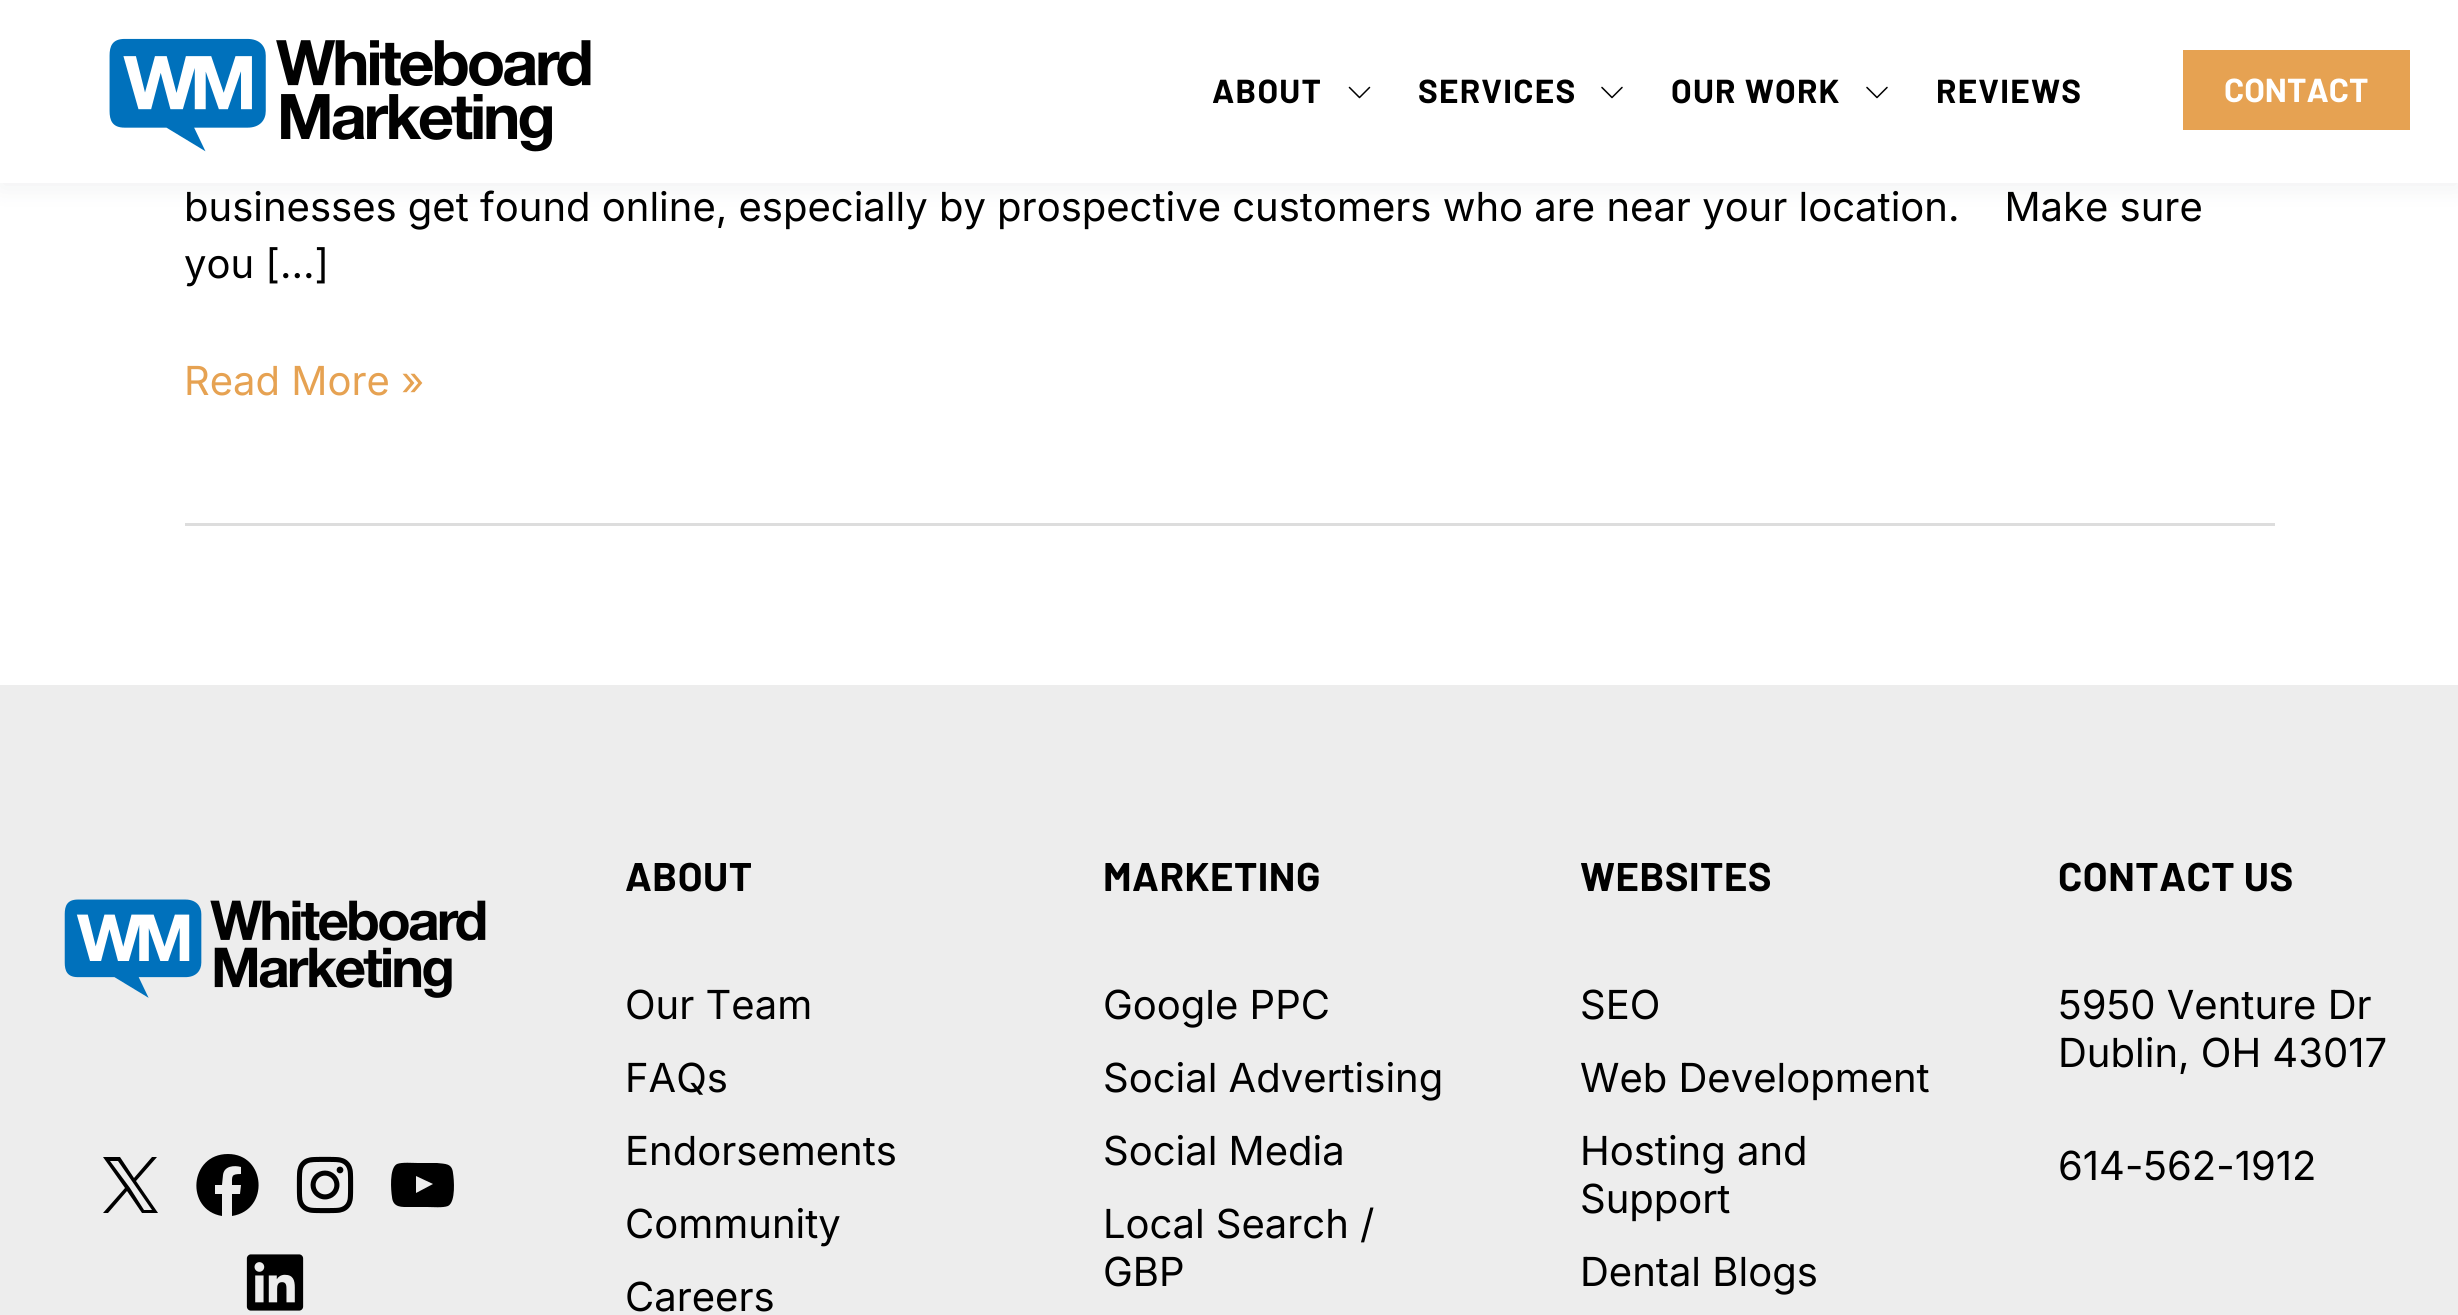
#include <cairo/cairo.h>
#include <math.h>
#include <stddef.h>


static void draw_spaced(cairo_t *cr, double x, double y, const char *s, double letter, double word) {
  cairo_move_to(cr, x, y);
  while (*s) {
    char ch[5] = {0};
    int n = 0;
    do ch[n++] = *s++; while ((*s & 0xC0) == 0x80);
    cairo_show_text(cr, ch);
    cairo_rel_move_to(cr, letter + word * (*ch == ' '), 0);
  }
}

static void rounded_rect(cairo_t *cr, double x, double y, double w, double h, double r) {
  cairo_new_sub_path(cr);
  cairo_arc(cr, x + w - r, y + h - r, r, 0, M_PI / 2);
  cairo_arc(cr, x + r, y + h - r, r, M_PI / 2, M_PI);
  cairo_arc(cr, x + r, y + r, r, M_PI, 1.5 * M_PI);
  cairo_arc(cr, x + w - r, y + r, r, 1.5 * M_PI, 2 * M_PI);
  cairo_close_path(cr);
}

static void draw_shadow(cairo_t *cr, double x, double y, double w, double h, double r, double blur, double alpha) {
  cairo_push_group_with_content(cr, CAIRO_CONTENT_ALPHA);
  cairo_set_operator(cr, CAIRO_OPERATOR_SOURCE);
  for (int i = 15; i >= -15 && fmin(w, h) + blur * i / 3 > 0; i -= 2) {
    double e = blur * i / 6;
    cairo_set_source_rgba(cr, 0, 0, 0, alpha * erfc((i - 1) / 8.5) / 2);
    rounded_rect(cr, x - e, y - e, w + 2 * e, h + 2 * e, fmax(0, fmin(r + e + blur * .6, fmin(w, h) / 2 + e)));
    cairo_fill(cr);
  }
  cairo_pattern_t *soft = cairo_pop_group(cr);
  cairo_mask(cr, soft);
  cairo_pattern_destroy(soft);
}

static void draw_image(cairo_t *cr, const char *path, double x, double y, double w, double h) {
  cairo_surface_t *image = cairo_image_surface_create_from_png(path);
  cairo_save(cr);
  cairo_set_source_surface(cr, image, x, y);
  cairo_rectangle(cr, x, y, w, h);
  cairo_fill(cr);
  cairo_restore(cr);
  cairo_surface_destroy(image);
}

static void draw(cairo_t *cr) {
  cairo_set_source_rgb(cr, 1, 1, 1);
  cairo_paint(cr);
  cairo_set_source_rgb(cr, 36 / 255.0, 50 / 255.0, 66 / 255.0);
  draw_shadow(cr, 0, 5, 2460, 183, 0, 12.5, 0.07);
  cairo_set_source_rgb(cr, 1, 1, 1);
  cairo_rectangle(cr, 0, 0, 2458, 183);
  cairo_fill(cr);
  draw_image(cr, "images/1.png", 109, 38, 482, 114);
  draw_image(cr, "images/2.png", 1348, 86, 23, 13);
  draw_image(cr, "images/3.png", 1601, 86, 22, 13);
  draw_image(cr, "images/3.png", 1866, 86, 22, 13);
  cairo_set_source_rgb(cr, 230 / 255.0, 162 / 255.0, 82 / 255.0);
  cairo_rectangle(cr, 2183, 50, 227, 80);
  cairo_fill(cr);
  cairo_set_source_rgb(cr, 221 / 255.0, 221 / 255.0, 221 / 255.0);
  cairo_rectangle(cr, 185, 523, 2090, 3);
  cairo_fill(cr);
  cairo_set_source_rgb(cr, 237 / 255.0, 237 / 255.0, 237 / 255.0);
  cairo_rectangle(cr, 0, 685, 2458, 630);
  cairo_fill(cr);
  draw_image(cr, "images/4.png", 64, 899, 422, 99);
  cairo_set_source_rgb(cr, 0, 0, 0);
  cairo_new_path(cr);
  cairo_move_to(cr, 136, 1181);
  cairo_line_to(cr, 157, 1157);
  cairo_line_to(cr, 152, 1157);
  cairo_line_to(cr, 134, 1178);
  cairo_line_to(cr, 120, 1157);
  cairo_line_to(cr, 103, 1157);
  cairo_line_to(cr, 125, 1188);
  cairo_line_to(cr, 103, 1213);
  cairo_line_to(cr, 108, 1213);
  cairo_line_to(cr, 127, 1191);
  cairo_line_to(cr, 142, 1213);
  cairo_line_to(cr, 158, 1213);
  cairo_close_path(cr);
  cairo_move_to(cr, 130, 1188);
  cairo_line_to(cr, 110, 1161);
  cairo_line_to(cr, 118, 1161);
  cairo_line_to(cr, 152, 1210);
  cairo_line_to(cr, 144, 1210);
  cairo_close_path(cr);
  cairo_fill(cr);
  cairo_new_path(cr);
  cairo_move_to(cr, 228, 1154);
  cairo_curve_to(cr, 189, 1154, 185, 1210, 222, 1216);
  cairo_line_to(cr, 222, 1194);
  cairo_line_to(cr, 215, 1194);
  cairo_line_to(cr, 215, 1185);
  cairo_line_to(cr, 222, 1185);
  cairo_line_to(cr, 223, 1175);
  cairo_curve_to(cr, 224, 1166, 234, 1165, 241, 1167);
  cairo_line_to(cr, 241, 1174);
  cairo_curve_to(cr, 231, 1174, 232, 1176, 232, 1185);
  cairo_line_to(cr, 241, 1185);
  cairo_line_to(cr, 240, 1194);
  cairo_line_to(cr, 232, 1194);
  cairo_line_to(cr, 232, 1216);
  cairo_curve_to(cr, 270, 1210, 266, 1154, 228, 1154);
  cairo_close_path(cr);
  cairo_fill(cr);
  draw_image(cr, "images/5.png", 296, 1156, 58, 58);
  cairo_new_path(cr);
  cairo_move_to(cr, 453, 1173);
  cairo_curve_to(cr, 452, 1163, 445, 1164, 437, 1163);
  cairo_line_to(cr, 418, 1163);
  cairo_curve_to(cr, 413, 1163, 402, 1162, 397, 1164);
  cairo_curve_to(cr, 389, 1168, 391, 1191, 392, 1197);
  cairo_curve_to(cr, 393, 1208, 402, 1207, 410, 1207);
  cairo_line_to(cr, 427, 1207);
  cairo_curve_to(cr, 432, 1207, 443, 1208, 448, 1206);
  cairo_curve_to(cr, 456, 1202, 454, 1179, 453, 1173);
  cairo_close_path(cr);
  cairo_move_to(cr, 416, 1193);
  cairo_line_to(cr, 416, 1176);
  cairo_line_to(cr, 433, 1184);
  cairo_close_path(cr);
  cairo_fill(cr);
  draw_image(cr, "images/6.png", 246, 1254, 58, 57);
  cairo_select_font_face(cr, "Barlow", CAIRO_FONT_SLANT_NORMAL, CAIRO_FONT_WEIGHT_BOLD);
  cairo_set_font_size(cr, 33.25);
  draw_spaced(cr, 1212, 103, "ABOUT", 1.25, 0);
  draw_spaced(cr, 1418, 103, "SERVICES", 1.25, 0);
  draw_spaced(cr, 1671, 103, "OUR WORK", 1.25, 0);
  draw_spaced(cr, 1936, 103, "REVIEWS", 1.25, 0);
  cairo_set_source_rgb(cr, 1, 1, 1);
  cairo_move_to(cr, 2224, 102);
  cairo_show_text(cr, "CONTACT");
  cairo_select_font_face(cr, "Inter", CAIRO_FONT_SLANT_NORMAL, CAIRO_FONT_WEIGHT_NORMAL);
  cairo_set_font_size(cr, 40);
  cairo_set_source_rgb(cr, 0, 0, 0);
  cairo_move_to(cr, 184, 221);
  cairo_show_text(cr, "businesses get found online, especially by prospective customers who are near your location.    Make sure");
  cairo_move_to(cr, 184, 278);
  cairo_show_text(cr, "you […]");
  cairo_set_source_rgb(cr, 230 / 255.0, 162 / 255.0, 82 / 255.0);
  cairo_move_to(cr, 184, 395);
  cairo_show_text(cr, "Read More »");
  cairo_select_font_face(cr, "Barlow", CAIRO_FONT_SLANT_NORMAL, CAIRO_FONT_WEIGHT_BOLD);
  cairo_set_source_rgb(cr, 0, 0, 0);
  draw_spaced(cr, 625, 891, "ABOUT", 0.5, 0);
  cairo_select_font_face(cr, "Inter", CAIRO_FONT_SLANT_NORMAL, CAIRO_FONT_WEIGHT_NORMAL);
  cairo_move_to(cr, 625, 1019);
  cairo_show_text(cr, "Our Team");
  cairo_move_to(cr, 625, 1092);
  cairo_show_text(cr, "FAQs");
  cairo_move_to(cr, 625, 1165);
  cairo_show_text(cr, "Endorsements");
  cairo_move_to(cr, 625, 1238);
  cairo_show_text(cr, "Community");
  cairo_move_to(cr, 625, 1311);
  cairo_show_text(cr, "Careers");
  cairo_select_font_face(cr, "Barlow", CAIRO_FONT_SLANT_NORMAL, CAIRO_FONT_WEIGHT_BOLD);
  draw_spaced(cr, 1103, 891, "MARKETING", 0.5, 0);
  cairo_select_font_face(cr, "Inter", CAIRO_FONT_SLANT_NORMAL, CAIRO_FONT_WEIGHT_NORMAL);
  cairo_move_to(cr, 1103, 1019);
  cairo_show_text(cr, "Google PPC");
  cairo_move_to(cr, 1103, 1092);
  cairo_show_text(cr, "Social Advertising");
  cairo_move_to(cr, 1103, 1165);
  cairo_show_text(cr, "Social Media");
  cairo_move_to(cr, 1103, 1238);
  cairo_show_text(cr, "Local Search /");
  cairo_move_to(cr, 1103, 1286);
  cairo_show_text(cr, "GBP");
  cairo_select_font_face(cr, "Barlow", CAIRO_FONT_SLANT_NORMAL, CAIRO_FONT_WEIGHT_BOLD);
  draw_spaced(cr, 1580, 891, "WEBSITES", 0.5, 0);
  cairo_select_font_face(cr, "Inter", CAIRO_FONT_SLANT_NORMAL, CAIRO_FONT_WEIGHT_NORMAL);
  cairo_move_to(cr, 1580, 1019);
  cairo_show_text(cr, "SEO");
  cairo_move_to(cr, 1580, 1092);
  cairo_show_text(cr, "Web Development");
  cairo_move_to(cr, 1580, 1165);
  cairo_show_text(cr, "Hosting and");
  cairo_move_to(cr, 1580, 1213);
  cairo_show_text(cr, "Support");
  cairo_move_to(cr, 1580, 1286);
  cairo_show_text(cr, "Dental Blogs");
  cairo_select_font_face(cr, "Barlow", CAIRO_FONT_SLANT_NORMAL, CAIRO_FONT_WEIGHT_BOLD);
  draw_spaced(cr, 2058, 891, "CONTACT US", 0.5, 0);
  cairo_select_font_face(cr, "Inter", CAIRO_FONT_SLANT_NORMAL, CAIRO_FONT_WEIGHT_NORMAL);
  cairo_move_to(cr, 2058, 1019);
  cairo_show_text(cr, "5950 Venture Dr");
  cairo_move_to(cr, 2058, 1067);
  cairo_show_text(cr, "Dublin, OH 43017");
  cairo_move_to(cr, 2058, 1180);
  cairo_show_text(cr, "614-562-1912");
}

int main(void) {
  cairo_surface_t *surface = cairo_image_surface_create(CAIRO_FORMAT_RGB24, 2458, 1315);
  cairo_t *cr = cairo_create(surface);
  cairo_font_options_t *options = cairo_font_options_create();
  cairo_font_options_set_hint_metrics(options, CAIRO_HINT_METRICS_OFF);
  cairo_font_options_set_hint_style(options, CAIRO_HINT_STYLE_NONE);
  cairo_set_font_options(cr, options);
  cairo_set_miter_limit(cr, 4);
  draw(cr);
  cairo_surface_write_to_png(surface, "out.png");
  cairo_font_options_destroy(options);
  cairo_destroy(cr);
  cairo_surface_destroy(surface);
  return 0;
}
